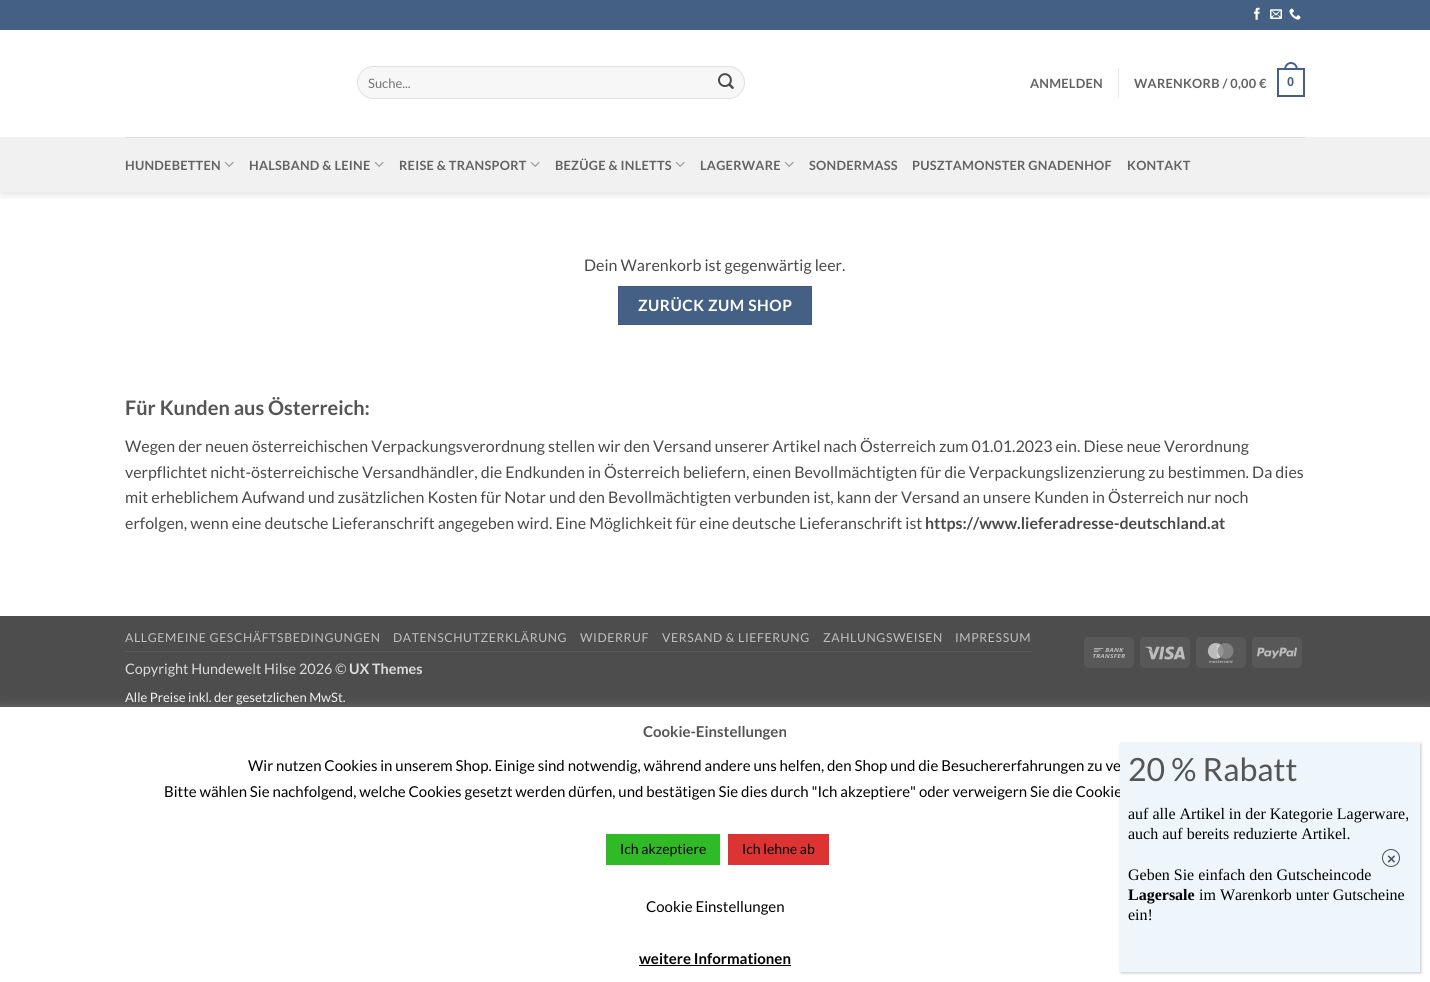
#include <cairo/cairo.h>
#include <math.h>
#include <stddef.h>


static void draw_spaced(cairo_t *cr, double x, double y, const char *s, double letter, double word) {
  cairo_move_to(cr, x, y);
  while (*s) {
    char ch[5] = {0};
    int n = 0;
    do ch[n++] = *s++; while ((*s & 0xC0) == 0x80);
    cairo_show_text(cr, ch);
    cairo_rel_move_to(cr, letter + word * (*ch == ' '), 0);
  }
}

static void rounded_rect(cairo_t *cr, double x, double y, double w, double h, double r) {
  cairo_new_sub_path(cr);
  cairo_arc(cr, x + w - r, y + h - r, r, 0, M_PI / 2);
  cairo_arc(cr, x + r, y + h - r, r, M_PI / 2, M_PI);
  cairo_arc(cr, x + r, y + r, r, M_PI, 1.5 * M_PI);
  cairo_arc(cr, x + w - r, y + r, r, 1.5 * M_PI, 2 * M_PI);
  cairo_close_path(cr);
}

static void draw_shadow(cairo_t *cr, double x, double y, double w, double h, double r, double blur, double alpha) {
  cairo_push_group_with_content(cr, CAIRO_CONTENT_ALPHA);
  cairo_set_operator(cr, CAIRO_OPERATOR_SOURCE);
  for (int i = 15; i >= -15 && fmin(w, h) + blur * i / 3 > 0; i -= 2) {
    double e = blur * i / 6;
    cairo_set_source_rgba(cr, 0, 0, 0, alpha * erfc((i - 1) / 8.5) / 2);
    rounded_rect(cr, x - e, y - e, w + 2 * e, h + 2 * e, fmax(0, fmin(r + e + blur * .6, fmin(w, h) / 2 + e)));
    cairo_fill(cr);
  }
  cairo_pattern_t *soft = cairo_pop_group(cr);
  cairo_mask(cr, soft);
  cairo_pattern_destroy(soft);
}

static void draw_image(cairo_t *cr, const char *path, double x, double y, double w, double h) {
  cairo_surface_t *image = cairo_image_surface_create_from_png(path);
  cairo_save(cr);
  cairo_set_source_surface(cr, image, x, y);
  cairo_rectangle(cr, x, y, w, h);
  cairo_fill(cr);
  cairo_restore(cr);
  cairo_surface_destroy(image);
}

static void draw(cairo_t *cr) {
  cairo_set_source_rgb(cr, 1, 1, 1);
  cairo_paint(cr);
  cairo_save(cr);
  cairo_rectangle(cr, 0, 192, 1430, 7);
  cairo_clip(cr);
  cairo_set_source_rgb(cr, 0, 0, 0);
  draw_shadow(cr, 1, 1, 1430, 192, 0, 5, 0.15);
  cairo_restore(cr);
  cairo_set_source_rgb(cr, 68 / 255.0, 96 / 255.0, 132 / 255.0);
  cairo_rectangle(cr, 0, 0, 1430, 30);
  cairo_fill(cr);
  draw_image(cr, "images/1.png", 1254, 7, 6, 13);
  draw_image(cr, "images/2.png", 1270, 9, 12, 10);
  draw_image(cr, "images/3.png", 1289, 8, 12, 12);
  cairo_set_source_rgb(cr, 247 / 255.0, 247 / 255.0, 247 / 255.0);
  rounded_rect(cr, 357, 66, 388, 33, 16.5);
  cairo_fill(cr);
  rounded_rect(cr, 357.5, 66.5, 387, 32, 16);
  cairo_set_source_rgba(cr, 0, 0, 0, 0.09);
  cairo_set_line_width(cr, 1);
  cairo_stroke(cr);
  draw_image(cr, "images/4.png", 718, 73, 16, 16);
  cairo_set_source_rgb(cr, 230 / 255.0, 230 / 255.0, 230 / 255.0);
  cairo_rectangle(cr, 1118, 68, 1, 30);
  cairo_fill(cr);
  cairo_rectangle(cr, 1278, 69, 26, 27);
  cairo_set_source_rgb(cr, 68 / 255.0, 96 / 255.0, 132 / 255.0);
  cairo_set_line_width(cr, 2);
  cairo_stroke(cr);
  cairo_set_fill_rule(cr, CAIRO_FILL_RULE_EVEN_ODD);
  cairo_new_path(cr);
  cairo_move_to(cr, 1291, 62);
  cairo_curve_to(cr, 1295.5, 62, 1298, 66, 1298, 70);
  cairo_line_to(cr, 1284, 70);
  cairo_curve_to(cr, 1284, 66, 1286.5, 62, 1291, 62);
  cairo_close_path(cr);
  cairo_move_to(cr, 1291, 64);
  cairo_curve_to(cr, 1294.5, 64, 1296, 67, 1296, 70);
  cairo_line_to(cr, 1286, 70);
  cairo_curve_to(cr, 1286, 67, 1287.5, 64, 1291, 64);
  cairo_close_path(cr);
  cairo_fill(cr);
  cairo_set_source_rgb(cr, 241 / 255.0, 241 / 255.0, 241 / 255.0);
  cairo_rectangle(cr, 0, 137, 1430, 55);
  cairo_fill(cr);
  cairo_set_source_rgb(cr, 224 / 255.0, 224 / 255.0, 224 / 255.0);
  cairo_rectangle(cr, 125, 137, 1180, 1);
  cairo_fill(cr);
  draw_image(cr, "images/5.png", 224, 161, 10, 6);
  draw_image(cr, "images/5.png", 374, 161, 10, 6);
  draw_image(cr, "images/5.png", 530, 161, 10, 6);
  draw_image(cr, "images/5.png", 675, 161, 10, 6);
  draw_image(cr, "images/5.png", 784, 161, 10, 6);
  cairo_set_source_rgb(cr, 68 / 255.0, 96 / 255.0, 132 / 255.0);
  cairo_rectangle(cr, 618.5, 286.5, 193, 38);
  cairo_fill_preserve(cr);
  cairo_set_source_rgb(cr, 65 / 255.0, 91 / 255.0, 125 / 255.0);
  cairo_set_line_width(cr, 1);
  cairo_stroke(cr);
  cairo_set_source_rgb(cr, 77 / 255.0, 77 / 255.0, 77 / 255.0);
  cairo_rectangle(cr, 0, 616, 1430, 91);
  cairo_fill(cr);
  cairo_set_source_rgb(cr, 88 / 255.0, 88 / 255.0, 88 / 255.0);
  cairo_rectangle(cr, 125, 651, 907, 1);
  cairo_fill(cr);
  rounded_rect(cr, 1084, 637, 50, 31, 5);
  cairo_fill(cr);
  draw_image(cr, "images/6.png", 1093, 648, 32, 10);
  rounded_rect(cr, 1140, 637, 50, 31, 5);
  cairo_fill(cr);
  draw_image(cr, "images/7.png", 1145, 646, 40, 14);
  rounded_rect(cr, 1196, 637, 50, 31, 5);
  cairo_fill(cr);
  draw_image(cr, "images/8.png", 1207, 643, 27, 20);
  rounded_rect(cr, 1252, 637, 50, 31, 5);
  cairo_fill(cr);
  draw_image(cr, "images/9.png", 1257, 647, 40, 12);
  cairo_set_source_rgb(cr, 172 / 255.0, 171 / 255.0, 171 / 255.0);
  draw_shadow(cr, 0, 706, 1430, 275, 0, 5, 0.3);
  cairo_set_source_rgb(cr, 1, 1, 1);
  cairo_rectangle(cr, 0, 707, 1430, 275);
  cairo_fill(cr);
  cairo_set_source_rgb(cr, 48 / 255.0, 186 / 255.0, 40 / 255.0);
  cairo_rectangle(cr, 606, 834, 114, 31);
  cairo_fill(cr);
  cairo_set_source_rgb(cr, 221 / 255.0, 51 / 255.0, 51 / 255.0);
  cairo_rectangle(cr, 728, 834, 101, 31);
  cairo_fill(cr);
  cairo_set_source_rgb(cr, 0, 0, 0);
  cairo_rectangle(cr, 639, 965, 152, 1);
  cairo_fill(cr);
  cairo_set_source_rgb(cr, 2 / 255.0, 2 / 255.0, 2 / 255.0);
  draw_shadow(cr, 1121, 744, 300, 229, 0, 1.5, 0.23);
  cairo_select_font_face(cr, "Lato", CAIRO_FONT_SLANT_NORMAL, CAIRO_FONT_WEIGHT_NORMAL);
  cairo_set_font_size(cr, 13);
  cairo_set_source_rgb(cr, 117 / 255.0, 117 / 255.0, 117 / 255.0);
  cairo_move_to(cr, 368, 88);
  cairo_show_text(cr, "Suche...");
  cairo_select_font_face(cr, "Lato", CAIRO_FONT_SLANT_NORMAL, CAIRO_FONT_WEIGHT_BOLD);
  cairo_set_font_size(cr, 12.75);
  cairo_set_source_rgb(cr, 99 / 255.0, 99 / 255.0, 99 / 255.0);
  draw_spaced(cr, 1030, 88, "ANMELDEN", 0.25, 0);
  draw_spaced(cr, 1134, 88, "WARENKORB / 0,00 €", 0.25, 0);
  cairo_select_font_face(cr, "Liberation Sans", CAIRO_FONT_SLANT_NORMAL, CAIRO_FONT_WEIGHT_BOLD);
  cairo_set_source_rgb(cr, 68 / 255.0, 96 / 255.0, 132 / 255.0);
  draw_spaced(cr, 1287, 86, "0", 0.25, 0);
  cairo_select_font_face(cr, "Lato", CAIRO_FONT_SLANT_NORMAL, CAIRO_FONT_WEIGHT_BOLD);
  cairo_set_source_rgb(cr, 99 / 255.0, 99 / 255.0, 99 / 255.0);
  draw_spaced(cr, 125, 170, "HUNDEBETTEN", 0.25, 0);
  draw_spaced(cr, 249, 170, "HALSBAND & LEINE", 0.25, 0);
  draw_spaced(cr, 399, 170, "REISE & TRANSPORT", 0.25, 0);
  draw_spaced(cr, 555, 170, "BEZÜGE & INLETTS", 0.25, 0);
  draw_spaced(cr, 700, 170, "LAGERWARE", 0.25, 0);
  draw_spaced(cr, 809, 170, "SONDERMASS", 0.25, 0);
  draw_spaced(cr, 912, 170, "PUSZTAMONSTER GNADENHOF", 0.25, 0);
  draw_spaced(cr, 1127, 170, "KONTAKT", 0.25, 0);
  cairo_select_font_face(cr, "Lato", CAIRO_FONT_SLANT_NORMAL, CAIRO_FONT_WEIGHT_NORMAL);
  cairo_set_font_size(cr, 16);
  cairo_set_source_rgb(cr, 74 / 255.0, 74 / 255.0, 74 / 255.0);
  cairo_move_to(cr, 584, 271);
  cairo_show_text(cr, "Dein Warenkorb ist gegenwärtig leer.");
  cairo_select_font_face(cr, "Lato", CAIRO_FONT_SLANT_NORMAL, CAIRO_FONT_WEIGHT_BOLD);
  cairo_set_font_size(cr, 15.5);
  cairo_set_source_rgb(cr, 1, 1, 1);
  draw_spaced(cr, 638, 311, "ZURÜCK ZUM SHOP", 0.5, 0);
  cairo_set_font_size(cr, 20);
  cairo_set_source_rgb(cr, 85 / 255.0, 85 / 255.0, 85 / 255.0);
  cairo_move_to(cr, 125, 415);
  cairo_show_text(cr, "Für Kunden aus Österreich:");
  cairo_select_font_face(cr, "Lato", CAIRO_FONT_SLANT_NORMAL, CAIRO_FONT_WEIGHT_NORMAL);
  cairo_set_font_size(cr, 16);
  cairo_set_source_rgb(cr, 74 / 255.0, 74 / 255.0, 74 / 255.0);
  cairo_move_to(cr, 125, 452);
  cairo_show_text(cr, "Wegen der neuen österreichischen Verpackungsverordnung stellen wir den Versand unserer Artikel nach Österreich zum 01.01.2023 ein. Diese neue Verordnung");
  cairo_move_to(cr, 125, 478);
  cairo_show_text(cr, "verpflichtet nicht-österreichische Versandhändler, die Endkunden in Österreich beliefern, einen Bevollmächtigten für die Verpackungslizenzierung zu bestimmen. Da dies");
  cairo_move_to(cr, 125, 503);
  cairo_show_text(cr, "mit erheblichem Aufwand und zusätzlichen Kosten für Notar und den Bevollmächtigten verbunden ist, kann der Versand an unsere Kunden in Österreich nur noch");
  cairo_move_to(cr, 125, 529);
  cairo_show_text(cr, "erfolgen, wenn eine deutsche Lieferanschrift angegeben wird. Eine Möglichkeit für eine deutsche Lieferanschrift ist");
  cairo_select_font_face(cr, "Lato", CAIRO_FONT_SLANT_NORMAL, CAIRO_FONT_WEIGHT_BOLD);
  cairo_move_to(cr, 925, 529);
  cairo_show_text(cr, "https://www.lieferadresse-deutschland.at");
  cairo_select_font_face(cr, "Lato", CAIRO_FONT_SLANT_NORMAL, CAIRO_FONT_WEIGHT_NORMAL);
  cairo_set_font_size(cr, 12.25);
  cairo_set_source_rgb(cr, 191 / 255.0, 191 / 255.0, 191 / 255.0);
  draw_spaced(cr, 125, 642, "ALLGEMEINE GESCHÄFTSBEDINGUNGEN", 0.6, 0);
  draw_spaced(cr, 393, 642, "DATENSCHUTZERKLÄRUNG", 0.6, 0);
  draw_spaced(cr, 580, 642, "WIDERRUF", 0.6, 0);
  draw_spaced(cr, 662, 642, "VERSAND & LIEFERUNG", 0.6, 0);
  draw_spaced(cr, 823, 642, "ZAHLUNGSWEISEN", 0.6, 0);
  draw_spaced(cr, 955, 642, "IMPRESSUM", 0.6, 0);
  cairo_set_font_size(cr, 14.4);
  cairo_set_source_rgb(cr, 219 / 255.0, 219 / 255.0, 219 / 255.0);
  cairo_move_to(cr, 125, 674);
  cairo_show_text(cr, "Copyright Hundewelt Hilse 2026 ©");
  cairo_select_font_face(cr, "Lato", CAIRO_FONT_SLANT_NORMAL, CAIRO_FONT_WEIGHT_BOLD);
  cairo_move_to(cr, 349, 674);
  cairo_show_text(cr, "UX Themes");
  cairo_select_font_face(cr, "Lato", CAIRO_FONT_SLANT_NORMAL, CAIRO_FONT_WEIGHT_NORMAL);
  cairo_set_font_size(cr, 13);
  cairo_set_source_rgb(cr, 241 / 255.0, 241 / 255.0, 241 / 255.0);
  cairo_move_to(cr, 125, 702);
  cairo_show_text(cr, "Alle Preise inkl. der gesetzlichen MwSt.");
  cairo_select_font_face(cr, "Lato", CAIRO_FONT_SLANT_NORMAL, CAIRO_FONT_WEIGHT_BOLD);
  cairo_set_font_size(cr, 15);
  cairo_set_source_rgb(cr, 85 / 255.0, 85 / 255.0, 85 / 255.0);
  cairo_move_to(cr, 643, 737);
  cairo_show_text(cr, "Cookie-Einstellungen");
  cairo_select_font_face(cr, "Lato", CAIRO_FONT_SLANT_NORMAL, CAIRO_FONT_WEIGHT_NORMAL);
  cairo_set_source_rgb(cr, 0, 0, 0);
  cairo_move_to(cr, 248, 771);
  cairo_show_text(cr, "Wir nutzen Cookies in unserem Shop. Einige sind notwendig, während andere uns helfen, den Shop und die Besuchererfahrungen zu ve");
  cairo_move_to(cr, 164, 797);
  cairo_show_text(cr, "Bitte wählen Sie nachfolgend, welche Cookies gesetzt werden dürfen, und bestätigen Sie dies durch \"Ich akzeptiere\" oder verweigern Sie die Cookie");
  cairo_set_font_size(cr, 14);
  cairo_move_to(cr, 620, 854);
  cairo_show_text(cr, "Ich akzeptiere");
  cairo_move_to(cr, 742, 854);
  cairo_show_text(cr, "Ich lehne ab");
  cairo_set_font_size(cr, 15);
  cairo_move_to(cr, 646, 912);
  cairo_show_text(cr, "Cookie Einstellungen");
  cairo_select_font_face(cr, "Lato", CAIRO_FONT_SLANT_NORMAL, CAIRO_FONT_WEIGHT_BOLD);
  cairo_move_to(cr, 639, 964);
  cairo_show_text(cr, "weitere Informationen");
  cairo_set_source_rgb(cr, 238 / 255.0, 246 / 255.0, 252 / 255.0);
  cairo_rectangle(cr, 1120, 743, 300, 229);
  cairo_fill(cr);
  cairo_select_font_face(cr, "Lato", CAIRO_FONT_SLANT_NORMAL, CAIRO_FONT_WEIGHT_NORMAL);
  cairo_set_font_size(cr, 32);
  cairo_set_source_rgb(cr, 85 / 255.0, 85 / 255.0, 85 / 255.0);
  cairo_move_to(cr, 1128, 781);
  cairo_show_text(cr, "20 % Rabatt");
  cairo_select_font_face(cr, "Liberation Serif", CAIRO_FONT_SLANT_NORMAL, CAIRO_FONT_WEIGHT_NORMAL);
  cairo_set_font_size(cr, 16);
  cairo_set_source_rgb(cr, 0, 0, 0);
  cairo_move_to(cr, 1128, 819);
  cairo_show_text(cr, "auf alle Artikel in der Kategorie Lagerware,");
  cairo_move_to(cr, 1128, 839);
  cairo_show_text(cr, "auch auf bereits reduzierte Artikel.");
  cairo_move_to(cr, 1128, 880);
  cairo_show_text(cr, "Geben Sie einfach den Gutscheincode");
  cairo_select_font_face(cr, "Liberation Serif", CAIRO_FONT_SLANT_NORMAL, CAIRO_FONT_WEIGHT_BOLD);
  cairo_move_to(cr, 1128, 900);
  cairo_show_text(cr, "Lagersale");
  cairo_select_font_face(cr, "Liberation Serif", CAIRO_FONT_SLANT_NORMAL, CAIRO_FONT_WEIGHT_NORMAL);
  cairo_move_to(cr, 1199, 900);
  cairo_show_text(cr, "im Warenkorb unter Gutscheine");
  cairo_move_to(cr, 1128, 920);
  cairo_show_text(cr, "ein!");
  cairo_new_path(cr);
  cairo_arc(cr, 1391, 858, 8.5, 0, 2 * M_PI);
  cairo_set_source_rgb(cr, 80 / 255.0, 80 / 255.0, 80 / 255.0);
  cairo_stroke(cr);
  cairo_select_font_face(cr, "Liberation Sans", CAIRO_FONT_SLANT_NORMAL, CAIRO_FONT_WEIGHT_BOLD);
  cairo_set_font_size(cr, 15);
  cairo_set_source_rgb(cr, 85 / 255.0, 85 / 255.0, 85 / 255.0);
  cairo_move_to(cr, 1387, 864);
  cairo_show_text(cr, "×");
}

int main(void) {
  cairo_surface_t *surface = cairo_image_surface_create(CAIRO_FORMAT_RGB24, 1430, 982);
  cairo_t *cr = cairo_create(surface);
  cairo_font_options_t *options = cairo_font_options_create();
  cairo_font_options_set_hint_metrics(options, CAIRO_HINT_METRICS_OFF);
  cairo_font_options_set_hint_style(options, CAIRO_HINT_STYLE_NONE);
  cairo_set_font_options(cr, options);
  cairo_set_miter_limit(cr, 4);
  draw(cr);
  cairo_surface_write_to_png(surface, "out.png");
  cairo_font_options_destroy(options);
  cairo_destroy(cr);
  cairo_surface_destroy(surface);
  return 0;
}
